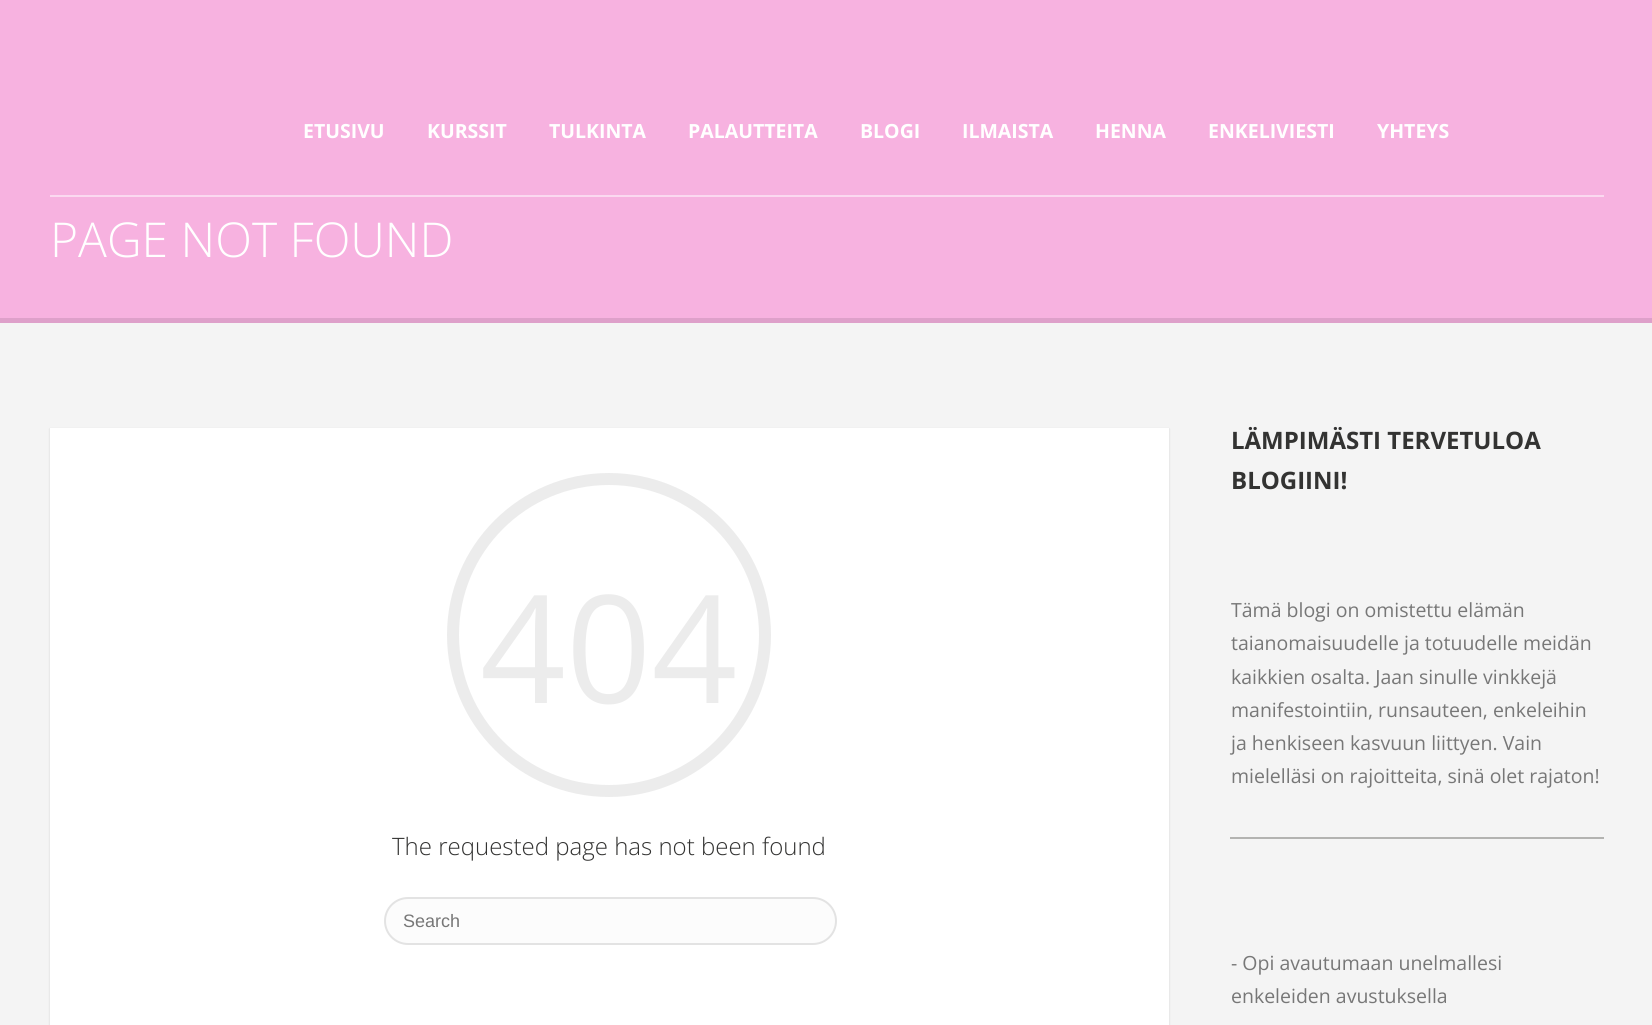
#include <cairo/cairo.h>
#include <math.h>
#include <stddef.h>


static void rounded_rect(cairo_t *cr, double x, double y, double w, double h, double r) {
  cairo_new_sub_path(cr);
  cairo_arc(cr, x + w - r, y + h - r, r, 0, M_PI / 2);
  cairo_arc(cr, x + r, y + h - r, r, M_PI / 2, M_PI);
  cairo_arc(cr, x + r, y + r, r, M_PI, 1.5 * M_PI);
  cairo_arc(cr, x + w - r, y + r, r, 1.5 * M_PI, 2 * M_PI);
  cairo_close_path(cr);
}

static void draw_shadow(cairo_t *cr, double x, double y, double w, double h, double r, double blur, double alpha) {
  cairo_push_group_with_content(cr, CAIRO_CONTENT_ALPHA);
  cairo_set_operator(cr, CAIRO_OPERATOR_SOURCE);
  for (int i = 15; i >= -15 && fmin(w, h) + blur * i / 3 > 0; i -= 2) {
    double e = blur * i / 6;
    cairo_set_source_rgba(cr, 0, 0, 0, alpha * erfc((i - 1) / 8.5) / 2);
    rounded_rect(cr, x - e, y - e, w + 2 * e, h + 2 * e, fmax(0, fmin(r + e + blur * .6, fmin(w, h) / 2 + e)));
    cairo_fill(cr);
  }
  cairo_pattern_t *soft = cairo_pop_group(cr);
  cairo_mask(cr, soft);
  cairo_pattern_destroy(soft);
}

static void draw(cairo_t *cr) {
  cairo_set_source_rgb(cr, 244 / 255.0, 244 / 255.0, 244 / 255.0);
  cairo_paint(cr);
  cairo_set_source_rgb(cr, 247 / 255.0, 178 / 255.0, 224 / 255.0);
  cairo_rectangle(cr, 0, 0, 1652, 318);
  cairo_fill(cr);
  cairo_set_source_rgb(cr, 251 / 255.0, 217 / 255.0, 240 / 255.0);
  cairo_rectangle(cr, 50, 195, 1554, 2);
  cairo_fill(cr);
  cairo_set_source_rgb(cr, 222 / 255.0, 160 / 255.0, 202 / 255.0);
  cairo_rectangle(cr, 0, 318, 1652, 5);
  cairo_fill(cr);
  cairo_set_source_rgb(cr, 0, 0, 0);
  draw_shadow(cr, 50, 429, 1119, 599, 0, 1, 0.15);
  cairo_set_source_rgb(cr, 1, 1, 1);
  cairo_rectangle(cr, 50, 428, 1119, 597);
  cairo_fill(cr);
  cairo_arc(cr, 609, 635, 156, 0, 2 * M_PI);
  cairo_set_source_rgb(cr, 236 / 255.0, 236 / 255.0, 236 / 255.0);
  cairo_set_line_width(cr, 12);
  cairo_stroke(cr);
  cairo_set_source_rgb(cr, 252 / 255.0, 252 / 255.0, 252 / 255.0);
  rounded_rect(cr, 385, 898, 451, 46, 23);
  cairo_fill_preserve(cr);
  cairo_set_source_rgb(cr, 227 / 255.0, 227 / 255.0, 227 / 255.0);
  cairo_set_line_width(cr, 2);
  cairo_stroke(cr);
  cairo_set_source_rgb(cr, 179 / 255.0, 179 / 255.0, 177 / 255.0);
  cairo_rectangle(cr, 1230, 837, 374, 2);
  cairo_fill(cr);
  cairo_select_font_face(cr, "Open Sans", CAIRO_FONT_SLANT_NORMAL, CAIRO_FONT_WEIGHT_BOLD);
  cairo_set_font_size(cr, 19.5);
  cairo_set_source_rgb(cr, 1, 1, 1);
  cairo_move_to(cr, 303, 138);
  cairo_show_text(cr, "ETUSIVU");
  cairo_move_to(cr, 427, 138);
  cairo_show_text(cr, "KURSSIT");
  cairo_move_to(cr, 549, 138);
  cairo_show_text(cr, "TULKINTA");
  cairo_move_to(cr, 688, 138);
  cairo_show_text(cr, "PALAUTTEITA");
  cairo_move_to(cr, 860, 138);
  cairo_show_text(cr, "BLOGI");
  cairo_move_to(cr, 962, 138);
  cairo_show_text(cr, "ILMAISTA");
  cairo_move_to(cr, 1095, 138);
  cairo_show_text(cr, "HENNA");
  cairo_move_to(cr, 1208, 138);
  cairo_show_text(cr, "ENKELIVIESTI");
  cairo_move_to(cr, 1377, 138);
  cairo_show_text(cr, "YHTEYS");
  cairo_select_font_face(cr, "Open Sans Light", CAIRO_FONT_SLANT_NORMAL, CAIRO_FONT_WEIGHT_NORMAL);
  cairo_set_font_size(cr, 48);
  cairo_move_to(cr, 50, 257);
  cairo_show_text(cr, "PAGE NOT FOUND");
  cairo_select_font_face(cr, "Open Sans", CAIRO_FONT_SLANT_NORMAL, CAIRO_FONT_WEIGHT_NORMAL);
  cairo_set_font_size(cr, 150);
  cairo_set_source_rgb(cr, 236 / 255.0, 236 / 255.0, 236 / 255.0);
  cairo_move_to(cr, 480, 703);
  cairo_show_text(cr, "404");
  cairo_select_font_face(cr, "Open Sans Light", CAIRO_FONT_SLANT_NORMAL, CAIRO_FONT_WEIGHT_NORMAL);
  cairo_set_font_size(cr, 24);
  cairo_set_source_rgb(cr, 51 / 255.0, 51 / 255.0, 50 / 255.0);
  cairo_move_to(cr, 392, 855);
  cairo_show_text(cr, "The requested page has not been found");
  cairo_select_font_face(cr, "Liberation Sans", CAIRO_FONT_SLANT_NORMAL, CAIRO_FONT_WEIGHT_NORMAL);
  cairo_set_font_size(cr, 18);
  cairo_set_source_rgb(cr, 119 / 255.0, 119 / 255.0, 119 / 255.0);
  cairo_move_to(cr, 403, 927);
  cairo_show_text(cr, "Search");
  cairo_select_font_face(cr, "Open Sans", CAIRO_FONT_SLANT_NORMAL, CAIRO_FONT_WEIGHT_BOLD);
  cairo_set_font_size(cr, 24);
  cairo_set_source_rgb(cr, 51 / 255.0, 51 / 255.0, 50 / 255.0);
  cairo_move_to(cr, 1231, 449);
  cairo_show_text(cr, "LÄMPIMÄSTI TERVETULOA");
  cairo_move_to(cr, 1231, 489);
  cairo_show_text(cr, "BLOGIINI!");
  cairo_select_font_face(cr, "Open Sans", CAIRO_FONT_SLANT_NORMAL, CAIRO_FONT_WEIGHT_NORMAL);
  cairo_set_font_size(cr, 19.5);
  cairo_set_source_rgb(cr, 119 / 255.0, 119 / 255.0, 119 / 255.0);
  cairo_move_to(cr, 1231, 617);
  cairo_show_text(cr, "Tämä blogi on omistettu elämän");
  cairo_move_to(cr, 1231, 650);
  cairo_show_text(cr, "taianomaisuudelle ja totuudelle meidän");
  cairo_move_to(cr, 1231, 684);
  cairo_show_text(cr, "kaikkien osalta. Jaan sinulle vinkkejä");
  cairo_move_to(cr, 1231, 717);
  cairo_show_text(cr, "manifestointiin, runsauteen, enkeleihin");
  cairo_move_to(cr, 1231, 750);
  cairo_show_text(cr, "ja henkiseen kasvuun liittyen. Vain");
  cairo_move_to(cr, 1231, 783);
  cairo_show_text(cr, "mielelläsi on rajoitteita, sinä olet rajaton!");
  cairo_move_to(cr, 1231, 970);
  cairo_show_text(cr, "- Opi avautumaan unelmallesi");
  cairo_move_to(cr, 1231, 1003);
  cairo_show_text(cr, "enkeleiden avustuksella");
}

int main(void) {
  cairo_surface_t *surface = cairo_image_surface_create(CAIRO_FORMAT_RGB24, 1652, 1025);
  cairo_t *cr = cairo_create(surface);
  cairo_font_options_t *options = cairo_font_options_create();
  cairo_font_options_set_hint_metrics(options, CAIRO_HINT_METRICS_OFF);
  cairo_font_options_set_hint_style(options, CAIRO_HINT_STYLE_NONE);
  cairo_set_font_options(cr, options);
  cairo_set_miter_limit(cr, 4);
  draw(cr);
  cairo_surface_write_to_png(surface, "out.png");
  cairo_font_options_destroy(options);
  cairo_destroy(cr);
  cairo_surface_destroy(surface);
  return 0;
}
